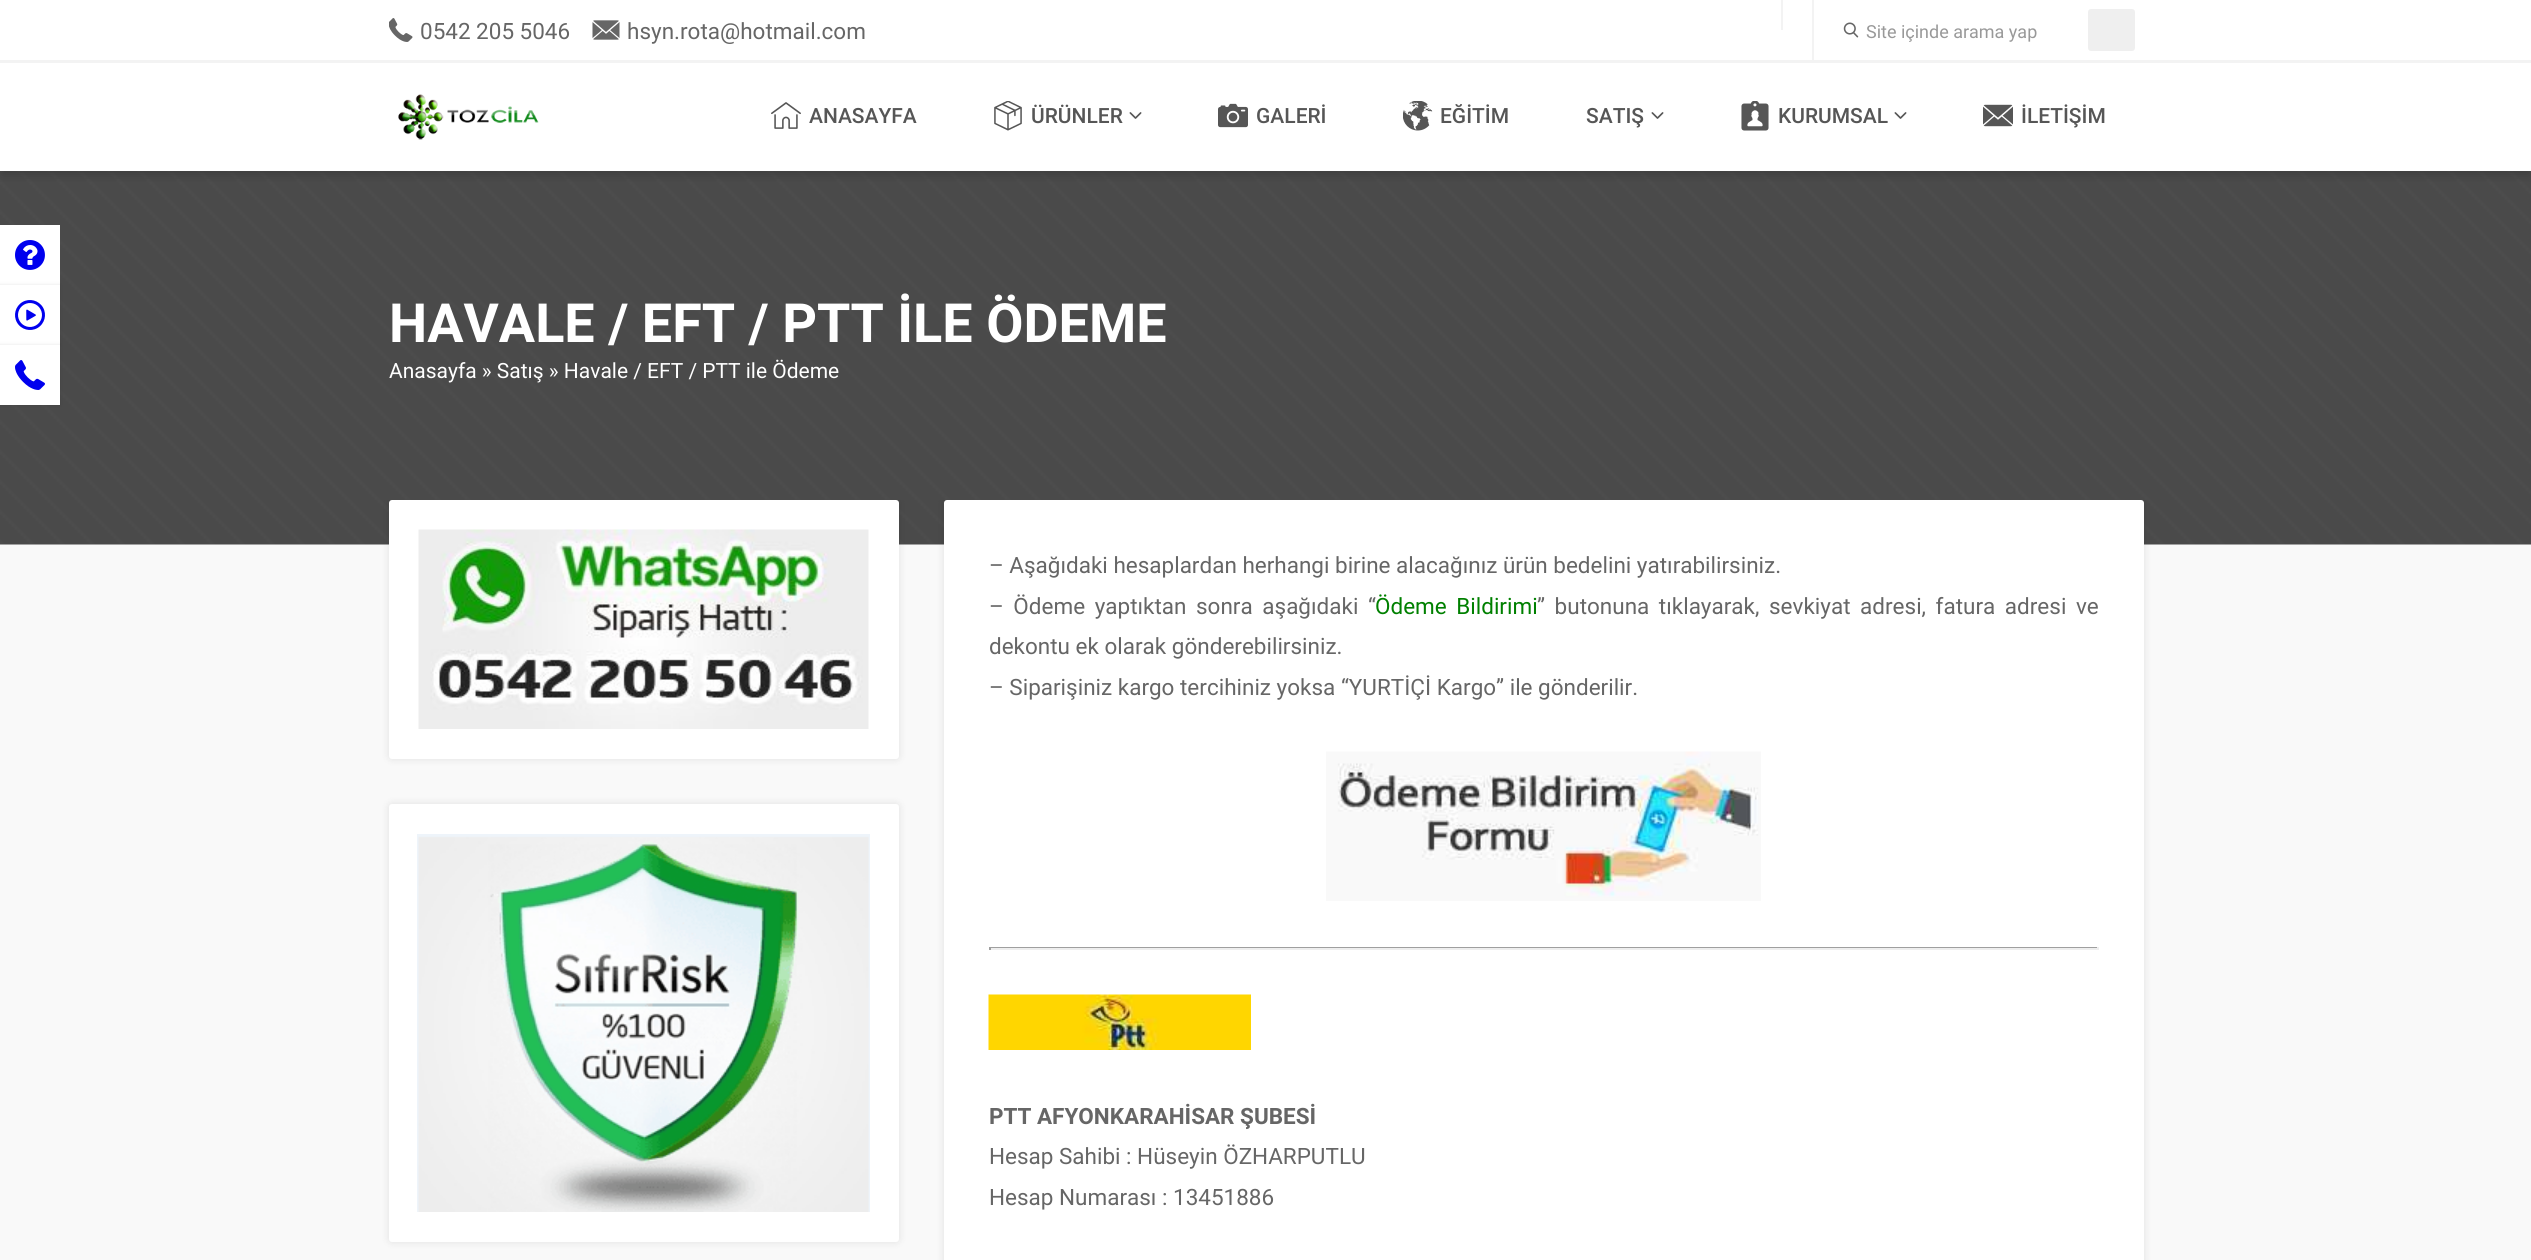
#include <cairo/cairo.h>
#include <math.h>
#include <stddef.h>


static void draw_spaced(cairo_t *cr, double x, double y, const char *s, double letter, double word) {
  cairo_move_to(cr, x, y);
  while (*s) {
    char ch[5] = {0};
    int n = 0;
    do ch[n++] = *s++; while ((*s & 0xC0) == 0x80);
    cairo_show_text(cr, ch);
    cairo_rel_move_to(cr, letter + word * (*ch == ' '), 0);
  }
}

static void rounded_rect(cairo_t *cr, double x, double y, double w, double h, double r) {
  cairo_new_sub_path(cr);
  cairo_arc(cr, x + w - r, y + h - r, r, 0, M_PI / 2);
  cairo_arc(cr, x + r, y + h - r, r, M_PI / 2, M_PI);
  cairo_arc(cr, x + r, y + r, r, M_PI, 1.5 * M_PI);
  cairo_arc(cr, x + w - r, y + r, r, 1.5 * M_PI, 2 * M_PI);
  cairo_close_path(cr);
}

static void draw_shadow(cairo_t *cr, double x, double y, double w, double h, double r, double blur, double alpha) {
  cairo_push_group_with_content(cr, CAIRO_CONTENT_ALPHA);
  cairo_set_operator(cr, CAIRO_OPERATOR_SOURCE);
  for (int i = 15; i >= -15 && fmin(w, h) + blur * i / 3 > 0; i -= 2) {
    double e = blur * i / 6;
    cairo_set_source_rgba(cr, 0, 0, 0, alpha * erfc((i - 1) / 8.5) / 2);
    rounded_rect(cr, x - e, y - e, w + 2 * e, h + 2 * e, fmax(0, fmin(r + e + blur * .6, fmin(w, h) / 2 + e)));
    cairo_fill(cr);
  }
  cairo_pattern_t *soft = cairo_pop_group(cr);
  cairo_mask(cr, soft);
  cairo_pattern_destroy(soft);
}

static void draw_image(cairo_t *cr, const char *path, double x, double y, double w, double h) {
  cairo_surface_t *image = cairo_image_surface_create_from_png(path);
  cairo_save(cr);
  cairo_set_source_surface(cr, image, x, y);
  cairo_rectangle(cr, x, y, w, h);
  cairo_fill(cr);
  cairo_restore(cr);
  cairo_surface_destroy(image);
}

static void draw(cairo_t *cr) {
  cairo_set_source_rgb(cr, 249 / 255.0, 249 / 255.0, 249 / 255.0);
  cairo_paint(cr);
  cairo_set_source_rgb(cr, 1, 1, 1);
  cairo_rectangle(cr, 0, 0, 2531, 171);
  cairo_fill(cr);
  cairo_set_source_rgb(cr, 243 / 255.0, 243 / 255.0, 243 / 255.0);
  cairo_rectangle(cr, 0, 60, 2531, 3);
  cairo_fill(cr);
  draw_image(cr, "images/1.png", 389, 18, 24, 24);
  draw_image(cr, "images/2.png", 592, 20, 28, 20);
  cairo_rectangle(cr, 1781, 0, 2, 30);
  cairo_fill(cr);
  cairo_rectangle(cr, 1812, 0, 2, 60);
  cairo_fill(cr);
  draw_image(cr, "images/3.png", 1843, 22, 16, 16);
  cairo_set_source_rgb(cr, 239 / 255.0, 239 / 255.0, 239 / 255.0);
  rounded_rect(cr, 2088, 9, 47, 42, 3);
  cairo_fill(cr);
  draw_image(cr, "images/15.png", 0, 171, 2531, 374);
  cairo_save(cr);
  cairo_rectangle(cr, 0, 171, 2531, 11);
  cairo_clip(cr);
  cairo_set_source_rgb(cr, 0, 0, 0);
  draw_shadow(cr, 3, 72, 2526, 102, 0, 6, 0.2);
  cairo_restore(cr);
  draw_image(cr, "images/4.png", 398, 94, 141, 46);
  draw_image(cr, "images/5.png", 771, 102, 30, 27);
  draw_image(cr, "images/6.png", 994, 101, 28, 30);
  draw_image(cr, "images/7.png", 1129, 112, 13, 7);
  draw_image(cr, "images/8.png", 1218, 103, 30, 25);
  draw_image(cr, "images/9.png", 1403, 101, 30, 30);
  draw_image(cr, "images/7.png", 1651, 112, 13, 7);
  draw_image(cr, "images/10.png", 1741, 101, 28, 30);
  draw_image(cr, "images/7.png", 1894, 112, 13, 7);
  draw_image(cr, "images/11.png", 1983, 104, 30, 23);
  cairo_set_source_rgb(cr, 1, 1, 1);
  cairo_rectangle(cr, 0, 225, 60, 60);
  cairo_fill(cr);
  draw_image(cr, "images/12.png", 15, 240, 30, 30);
  cairo_set_source_rgb(cr, 0, 0, 0);
  draw_shadow(cr, -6, 285, 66, 60, 0, 2, 0.1);
  cairo_set_source_rgb(cr, 1, 1, 1);
  cairo_rectangle(cr, 0, 285, 60, 60);
  cairo_fill(cr);
  draw_image(cr, "images/13.png", 15, 300, 30, 30);
  cairo_set_source_rgb(cr, 0, 0, 0);
  draw_shadow(cr, -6, 345, 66, 60, 0, 2, 0.1);
  cairo_set_source_rgb(cr, 1, 1, 1);
  cairo_rectangle(cr, 0, 345, 60, 60);
  cairo_fill(cr);
  draw_image(cr, "images/14.png", 15, 360, 30, 30);
  cairo_save(cr);
  cairo_rectangle(cr, 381, 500, 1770, 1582);
  cairo_clip(cr);
  cairo_set_source_rgb(cr, 0, 0, 0);
  draw_shadow(cr, 389, 500, 510, 259, 3, 4, 0.1);
  cairo_restore(cr);
  rounded_rect(cr, 389, 500, 510, 259, 3);
  cairo_fill(cr);
  draw_image(cr, "images/16.png", 418, 529, 451, 200);
  cairo_set_source_rgb(cr, 0, 0, 0);
  draw_shadow(cr, 389, 804, 510, 438, 3, 4, 0.1);
  cairo_set_source_rgb(cr, 1, 1, 1);
  rounded_rect(cr, 389, 804, 510, 438, 3);
  cairo_fill(cr);
  draw_image(cr, "images/17.png", 417, 834, 453, 378);
  cairo_save(cr);
  cairo_rectangle(cr, 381, 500, 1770, 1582);
  cairo_clip(cr);
  cairo_set_source_rgb(cr, 0, 0, 0);
  draw_shadow(cr, 944, 500, 1200, 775, 3, 4, 0.1);
  cairo_restore(cr);
  rounded_rect(cr, 944, 500, 1200, 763, 3);
  cairo_fill(cr);
  draw_image(cr, "images/18.png", 1326, 751, 435, 150);
  cairo_set_source_rgb(cr, 159 / 255.0, 159 / 255.0, 159 / 255.0);
  cairo_rectangle(cr, 989, 947, 1110, 1);
  cairo_fill(cr);
  cairo_set_source_rgb(cr, 238 / 255.0, 238 / 255.0, 238 / 255.0);
  cairo_rectangle(cr, 2097, 947, 2, 3);
  cairo_fill(cr);
  cairo_rectangle(cr, 989, 948, 1110, 2);
  cairo_fill(cr);
  cairo_set_source_rgb(cr, 159 / 255.0, 159 / 255.0, 159 / 255.0);
  cairo_rectangle(cr, 989, 947, 2, 3);
  cairo_fill(cr);
  draw_image(cr, "images/19.png", 988, 994, 263, 56);
  cairo_select_font_face(cr, "Roboto", CAIRO_FONT_SLANT_NORMAL, CAIRO_FONT_WEIGHT_NORMAL);
  cairo_set_font_size(cr, 22.5);
  cairo_set_source_rgb(cr, 102 / 255.0, 102 / 255.0, 102 / 255.0);
  cairo_move_to(cr, 420, 39);
  cairo_show_text(cr, "0542 205 5046");
  cairo_move_to(cr, 627, 39);
  cairo_show_text(cr, "hsyn.rota@hotmail.com");
  cairo_set_font_size(cr, 18);
  cairo_set_source_rgb(cr, 153 / 255.0, 153 / 255.0, 153 / 255.0);
  cairo_move_to(cr, 1866, 38);
  cairo_show_text(cr, "Site içinde arama yap");
  cairo_select_font_face(cr, "Roboto Medium", CAIRO_FONT_SLANT_NORMAL, CAIRO_FONT_WEIGHT_NORMAL);
  cairo_set_font_size(cr, 21);
  cairo_set_source_rgb(cr, 86 / 255.0, 86 / 255.0, 86 / 255.0);
  cairo_move_to(cr, 809, 123);
  cairo_show_text(cr, "ANASAYFA");
  cairo_move_to(cr, 1031, 123);
  cairo_show_text(cr, "ÜRÜNLER");
  cairo_move_to(cr, 1256, 123);
  cairo_show_text(cr, "GALERİ");
  cairo_move_to(cr, 1440, 123);
  cairo_show_text(cr, "EĞİTİM");
  cairo_move_to(cr, 1586, 123);
  cairo_show_text(cr, "SATIŞ");
  cairo_move_to(cr, 1778, 123);
  cairo_show_text(cr, "KURUMSAL");
  cairo_move_to(cr, 2021, 123);
  cairo_show_text(cr, "İLETİŞİM");
  cairo_select_font_face(cr, "Roboto", CAIRO_FONT_SLANT_NORMAL, CAIRO_FONT_WEIGHT_BOLD);
  cairo_set_font_size(cr, 54);
  cairo_set_source_rgb(cr, 1, 1, 1);
  cairo_move_to(cr, 389, 342);
  cairo_show_text(cr, "HAVALE / EFT / PTT İLE ÖDEME");
  cairo_select_font_face(cr, "Roboto", CAIRO_FONT_SLANT_NORMAL, CAIRO_FONT_WEIGHT_NORMAL);
  cairo_set_font_size(cr, 21);
  cairo_move_to(cr, 389, 378);
  cairo_show_text(cr, "Anasayfa » Satış » Havale / EFT / PTT ile Ödeme");
  cairo_set_font_size(cr, 22.5);
  cairo_set_source_rgb(cr, 102 / 255.0, 102 / 255.0, 102 / 255.0);
  cairo_move_to(cr, 989, 573);
  cairo_show_text(cr, "– Aşağıdaki hesaplardan herhangi birine alacağınız ürün bedelini yatırabilirsiniz.");
  draw_spaced(cr, 989, 614, "– Ödeme yaptıktan sonra aşağıdaki “", 0, 4);
  cairo_set_source_rgb(cr, 0, 128 / 255.0, 0);
  draw_spaced(cr, 1375, 614, "Ödeme Bildirimi", 0, 4);
  cairo_set_source_rgb(cr, 102 / 255.0, 102 / 255.0, 102 / 255.0);
  draw_spaced(cr, 1537, 614, "” butonuna tıklayarak, sevkiyat adresi, fatura adresi ve", 0, 4);
  cairo_move_to(cr, 989, 654);
  cairo_show_text(cr, "dekontu ek olarak gönderebilirsiniz.");
  cairo_move_to(cr, 989, 695);
  cairo_show_text(cr, "– Siparişiniz kargo tercihiniz yoksa “YURTİÇİ Kargo” ile gönderilir.");
  cairo_select_font_face(cr, "Roboto", CAIRO_FONT_SLANT_NORMAL, CAIRO_FONT_WEIGHT_BOLD);
  cairo_move_to(cr, 989, 1124);
  cairo_show_text(cr, "PTT AFYONKARAHİSAR ŞUBESİ");
  cairo_select_font_face(cr, "Roboto", CAIRO_FONT_SLANT_NORMAL, CAIRO_FONT_WEIGHT_NORMAL);
  cairo_move_to(cr, 989, 1164);
  cairo_show_text(cr, "Hesap Sahibi : Hüseyin ÖZHARPUTLU");
  cairo_move_to(cr, 989, 1205);
  cairo_show_text(cr, "Hesap Numarası : 13451886");
}

int main(void) {
  cairo_surface_t *surface = cairo_image_surface_create(CAIRO_FORMAT_RGB24, 2531, 1260);
  cairo_t *cr = cairo_create(surface);
  cairo_font_options_t *options = cairo_font_options_create();
  cairo_font_options_set_hint_metrics(options, CAIRO_HINT_METRICS_OFF);
  cairo_font_options_set_hint_style(options, CAIRO_HINT_STYLE_NONE);
  cairo_set_font_options(cr, options);
  cairo_set_miter_limit(cr, 4);
  draw(cr);
  cairo_surface_write_to_png(surface, "out.png");
  cairo_font_options_destroy(options);
  cairo_destroy(cr);
  cairo_surface_destroy(surface);
  return 0;
}
